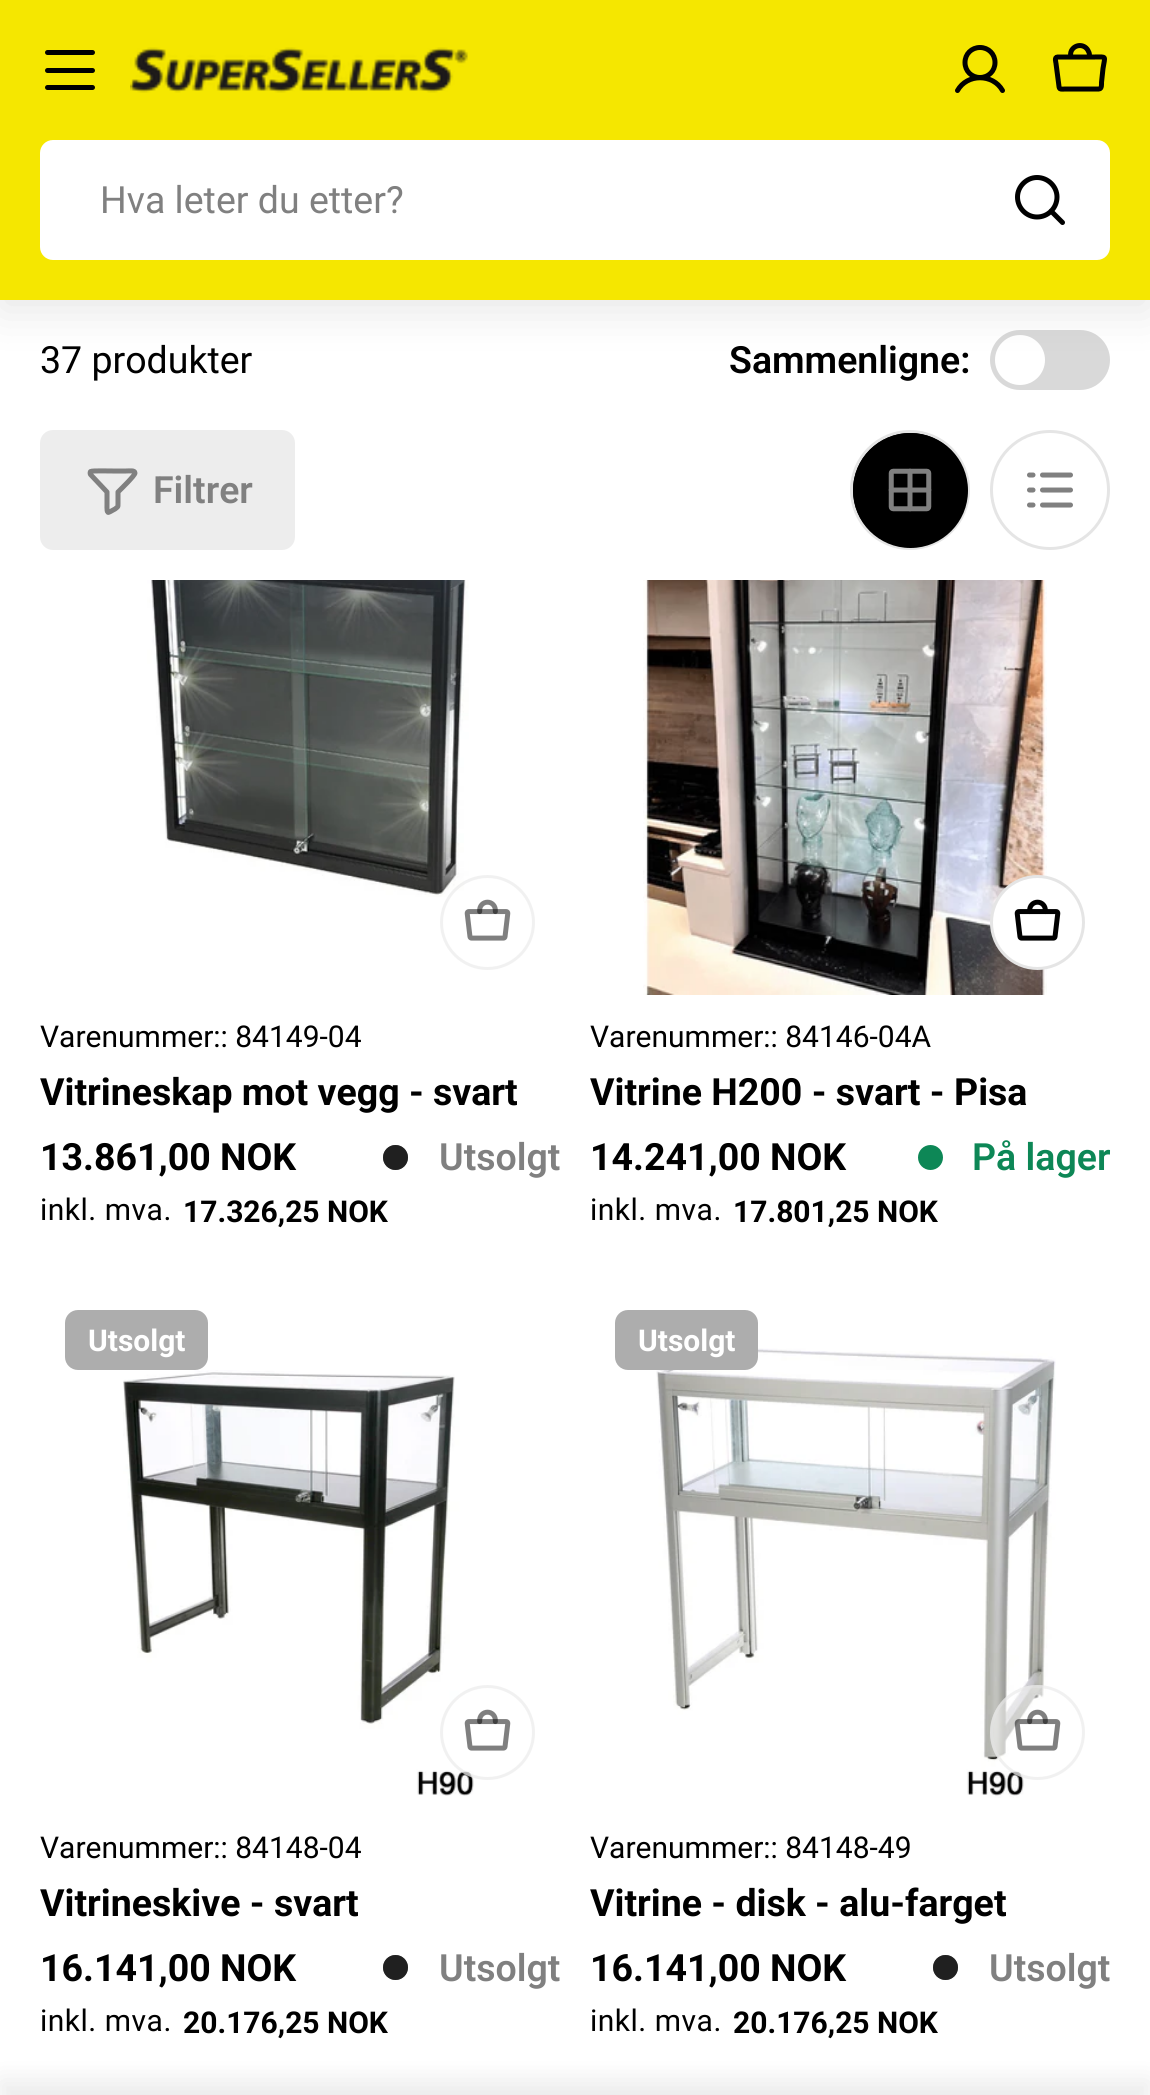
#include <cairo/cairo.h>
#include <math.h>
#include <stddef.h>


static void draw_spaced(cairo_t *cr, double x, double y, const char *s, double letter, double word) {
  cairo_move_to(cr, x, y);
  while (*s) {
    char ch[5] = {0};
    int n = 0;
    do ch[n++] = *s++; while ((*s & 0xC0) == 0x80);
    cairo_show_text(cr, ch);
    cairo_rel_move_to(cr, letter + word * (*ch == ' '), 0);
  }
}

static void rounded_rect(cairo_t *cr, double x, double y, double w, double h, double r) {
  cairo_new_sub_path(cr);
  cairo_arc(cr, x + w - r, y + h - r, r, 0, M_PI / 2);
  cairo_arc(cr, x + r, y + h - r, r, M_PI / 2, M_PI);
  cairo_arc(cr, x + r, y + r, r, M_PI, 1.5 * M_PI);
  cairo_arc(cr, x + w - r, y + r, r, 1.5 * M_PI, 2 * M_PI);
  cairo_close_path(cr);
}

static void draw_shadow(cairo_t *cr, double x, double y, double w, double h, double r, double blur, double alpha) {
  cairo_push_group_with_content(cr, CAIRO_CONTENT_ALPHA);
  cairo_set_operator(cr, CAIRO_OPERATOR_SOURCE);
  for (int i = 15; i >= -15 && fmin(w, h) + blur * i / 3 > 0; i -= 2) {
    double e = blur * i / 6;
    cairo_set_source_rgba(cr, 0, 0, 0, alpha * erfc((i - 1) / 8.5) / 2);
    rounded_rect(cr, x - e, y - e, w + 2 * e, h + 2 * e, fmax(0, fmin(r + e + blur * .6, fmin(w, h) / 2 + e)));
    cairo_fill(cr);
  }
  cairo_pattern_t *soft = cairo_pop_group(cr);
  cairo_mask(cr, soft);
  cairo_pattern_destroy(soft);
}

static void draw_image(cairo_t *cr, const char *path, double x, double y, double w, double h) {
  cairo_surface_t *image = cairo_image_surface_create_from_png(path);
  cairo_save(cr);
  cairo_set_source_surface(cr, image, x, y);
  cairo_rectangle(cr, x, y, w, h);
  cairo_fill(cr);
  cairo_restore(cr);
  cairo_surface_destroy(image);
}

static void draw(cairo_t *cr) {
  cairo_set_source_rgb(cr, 1, 1, 1);
  cairo_paint(cr);
  cairo_set_source_rgb(cr, 217 / 255.0, 217 / 255.0, 217 / 255.0);
  rounded_rect(cr, 990, 330, 120, 60, 30);
  cairo_fill(cr);
  cairo_set_source_rgb(cr, 1, 1, 1);
  cairo_arc(cr, 1020, 360, 25, 0, 2 * M_PI);
  cairo_fill(cr);
  cairo_set_source_rgb(cr, 0, 0, 0);
  draw_shadow(cr, 0, 10, 1150, 300, 0, 22.5, 0.1);
  cairo_set_source_rgb(cr, 245 / 255.0, 231 / 255.0, 0);
  cairo_rectangle(cr, 0, 0, 1150, 300);
  cairo_fill(cr);
  cairo_set_source_rgb(cr, 0, 0, 0);
  rounded_rect(cr, 45, 68, 50, 5, 2.5);
  cairo_fill(cr);
  rounded_rect(cr, 45, 50, 50, 5, 2.5);
  cairo_fill(cr);
  rounded_rect(cr, 45, 85, 50, 5, 2.5);
  cairo_fill(cr);
  draw_image(cr, "images/1.png", 130, 47, 338, 46);
  cairo_new_path(cr);
  cairo_move_to(cr, 980, 77.5);
  cairo_curve_to(cr, 988.5, 77.5, 995, 71, 995, 62.5);
  cairo_curve_to(cr, 995, 54, 988.5, 47.5, 980, 47.5);
  cairo_curve_to(cr, 971.5, 47.5, 965, 54, 965, 62.5);
  cairo_curve_to(cr, 965, 71, 971.5, 77.5, 980, 77.5);
  cairo_close_path(cr);
  cairo_move_to(cr, 957.5, 90.5);
  cairo_curve_to(cr, 967, 73.5, 993, 73.5, 1002.5, 90.5);
  cairo_set_line_width(cr, 5);
  cairo_set_line_cap(cr, CAIRO_LINE_CAP_ROUND);
  cairo_set_line_join(cr, CAIRO_LINE_JOIN_ROUND);
  cairo_stroke(cr);
  cairo_new_path(cr);
  cairo_move_to(cr, 1099, 89);
  cairo_line_to(cr, 1067, 89);
  cairo_curve_to(cr, 1058.5, 89, 1059.5, 90.5, 1058.5, 82.5);
  cairo_line_to(cr, 1056, 63.5);
  cairo_curve_to(cr, 1056, 62.5, 1054, 57, 1057.5, 57);
  cairo_line_to(cr, 1095, 57);
  cairo_curve_to(cr, 1107, 57, 1105, 55.5, 1103, 68.5);
  cairo_line_to(cr, 1101.5, 82.5);
  cairo_curve_to(cr, 1101.5, 83.5, 1102, 89, 1099, 89);
  cairo_close_path(cr);
  cairo_move_to(cr, 1070.5, 57);
  cairo_curve_to(cr, 1070.5, 54.5, 1070.5, 52.5, 1071.5, 50.5);
  cairo_curve_to(cr, 1075.5, 43.5, 1085.5, 44, 1088.5, 51.5);
  cairo_curve_to(cr, 1089.5, 53, 1089.5, 55, 1089.5, 57);
  cairo_stroke(cr);
  cairo_set_source_rgb(cr, 1, 1, 1);
  rounded_rect(cr, 40, 140, 1070, 120, 13);
  cairo_fill(cr);
  cairo_new_path(cr);
  cairo_move_to(cr, 1037, 217);
  cairo_curve_to(cr, 1048, 217, 1057, 208, 1057, 197);
  cairo_curve_to(cr, 1057, 186.5, 1048, 177.5, 1037, 177.5);
  cairo_curve_to(cr, 1026.5, 177.5, 1017.5, 186.5, 1017.5, 197);
  cairo_curve_to(cr, 1017.5, 208, 1026.5, 217, 1037, 217);
  cairo_close_path(cr);
  cairo_move_to(cr, 1051, 211);
  cairo_line_to(cr, 1062.5, 222.5);
  cairo_set_source_rgb(cr, 0, 0, 0);
  cairo_stroke(cr);
  cairo_set_source_rgb(cr, 237 / 255.0, 237 / 255.0, 237 / 255.0);
  rounded_rect(cr, 41.5, 431.5, 252, 117, 11.5);
  cairo_fill_preserve(cr);
  cairo_set_line_width(cr, 3);
  cairo_set_line_cap(cr, CAIRO_LINE_CAP_BUTT);
  cairo_set_line_join(cr, CAIRO_LINE_JOIN_MITER);
  cairo_stroke(cr);
  cairo_new_path(cr);
  cairo_move_to(cr, 90.5, 474.5);
  cairo_curve_to(cr, 90, 473.5, 90, 472.5, 90.5, 471.5);
  cairo_curve_to(cr, 92, 470.5, 109.5, 471, 112.5, 471);
  cairo_line_to(cr, 126, 471);
  cairo_curve_to(cr, 129.5, 471, 135, 470, 135, 473);
  cairo_curve_to(cr, 135, 475.5, 120.5, 489.5, 118, 492);
  cairo_line_to(cr, 118, 503.5);
  cairo_curve_to(cr, 118, 507.5, 118, 506.5, 115, 509);
  cairo_line_to(cr, 109.5, 512);
  cairo_curve_to(cr, 106.5, 514, 107, 508.5, 107, 504.5);
  cairo_line_to(cr, 107, 492);
  cairo_close_path(cr);
  cairo_set_source_rgb(cr, 128 / 255.0, 128 / 255.0, 128 / 255.0);
  cairo_set_line_width(cr, 5);
  cairo_set_line_cap(cr, CAIRO_LINE_CAP_ROUND);
  cairo_set_line_join(cr, CAIRO_LINE_JOIN_ROUND);
  cairo_stroke(cr);
  cairo_set_source_rgb(cr, 0, 0, 0);
  cairo_arc(cr, 910, 490, 58.5, 0, 2 * M_PI);
  cairo_fill_preserve(cr);
  cairo_set_source_rgb(cr, 229 / 255.0, 229 / 255.0, 229 / 255.0);
  cairo_set_line_width(cr, 3);
  cairo_set_line_cap(cr, CAIRO_LINE_CAP_BUTT);
  cairo_set_line_join(cr, CAIRO_LINE_JOIN_MITER);
  cairo_stroke(cr);
  cairo_save(cr);
  rounded_rect(cr, 853, 433, 115, 115, 57.5);
  cairo_clip(cr);
  cairo_set_source_rgb(cr, 0, 0, 0);
  rounded_rect(cr, 850, 430, 118, 120, 59);
  cairo_fill(cr);
  cairo_restore(cr);
  draw_image(cr, "images/2.png", 888, 468, 44, 44);
  cairo_arc(cr, 1050, 490, 58.5, 0, 2 * M_PI);
  cairo_stroke(cr);
  cairo_new_path(cr);
  cairo_move_to(cr, 1042.5, 475);
  cairo_line_to(cr, 1070.5, 475);
  cairo_move_to(cr, 1042.5, 490);
  cairo_line_to(cr, 1070.5, 490);
  cairo_move_to(cr, 1042.5, 505);
  cairo_line_to(cr, 1070.5, 505);
  cairo_move_to(cr, 1029.5, 475);
  cairo_line_to(cr, 1033, 475);
  cairo_move_to(cr, 1029.5, 490);
  cairo_line_to(cr, 1033, 490);
  cairo_move_to(cr, 1029.5, 505);
  cairo_line_to(cr, 1033, 505);
  cairo_set_source_rgb(cr, 128 / 255.0, 128 / 255.0, 128 / 255.0);
  cairo_set_line_width(cr, 5);
  cairo_set_line_cap(cr, CAIRO_LINE_CAP_ROUND);
  cairo_set_line_join(cr, CAIRO_LINE_JOIN_ROUND);
  cairo_stroke(cr);
  draw_image(cr, "images/3.png", 147, 580, 322, 317);
  cairo_arc(cr, 487.5, 922.5, 46, 0, 2 * M_PI);
  cairo_set_source_rgba(cr, 229 / 255.0, 229 / 255.0, 229 / 255.0, 0.5);
  cairo_set_line_width(cr, 3);
  cairo_set_line_cap(cr, CAIRO_LINE_CAP_BUTT);
  cairo_set_line_join(cr, CAIRO_LINE_JOIN_MITER);
  cairo_stroke(cr);
  draw_image(cr, "images/4.png", 464, 899, 47, 42);
  cairo_set_source_rgb(cr, 128 / 255.0, 128 / 255.0, 128 / 255.0);
  cairo_arc(cr, 395.5, 1157.5, 12.5, 0, 2 * M_PI);
  cairo_fill(cr);
  cairo_set_source_rgba(cr, 0, 0, 0, 0.5);
  cairo_arc(cr, 395.5, 1157.5, 12.5, 0, 2 * M_PI);
  cairo_fill(cr);
  cairo_arc(cr, 395.5, 1157.5, 12.5, 0, 2 * M_PI);
  cairo_fill(cr);
  draw_image(cr, "images/5.png", 643, 580, 404, 415);
  cairo_set_source_rgb(cr, 1, 1, 1);
  cairo_arc(cr, 1037.5, 922.5, 46, 0, 2 * M_PI);
  cairo_fill_preserve(cr);
  cairo_set_source_rgb(cr, 229 / 255.0, 229 / 255.0, 229 / 255.0);
  cairo_stroke(cr);
  draw_image(cr, "images/6.png", 1014, 899, 47, 42);
  cairo_set_source_rgb(cr, 13 / 255.0, 135 / 255.0, 86 / 255.0);
  cairo_arc(cr, 930.5, 1157.5, 12.5, 0, 2 * M_PI);
  cairo_fill(cr);
  cairo_set_source_rgb(cr, 173 / 255.0, 173 / 255.0, 173 / 255.0);
  rounded_rect(cr, 65, 1310, 143, 60, 13);
  cairo_fill(cr);
  draw_image(cr, "images/7.png", 123, 1370, 351, 426);
  cairo_set_source_rgba(cr, 1, 1, 1, 0.5);
  cairo_arc(cr, 487.5, 1732.5, 47.5, 0, 2 * M_PI);
  cairo_fill(cr);
  cairo_arc(cr, 487.5, 1732.5, 46, 0, 2 * M_PI);
  cairo_set_source_rgba(cr, 229 / 255.0, 229 / 255.0, 229 / 255.0, 0.5);
  cairo_stroke(cr);
  draw_image(cr, "images/4.png", 464, 1709, 47, 42);
  cairo_set_source_rgb(cr, 128 / 255.0, 128 / 255.0, 128 / 255.0);
  cairo_arc(cr, 395.5, 1967.5, 12.5, 0, 2 * M_PI);
  cairo_fill(cr);
  cairo_set_source_rgba(cr, 0, 0, 0, 0.5);
  cairo_arc(cr, 395.5, 1967.5, 12.5, 0, 2 * M_PI);
  cairo_fill(cr);
  cairo_arc(cr, 395.5, 1967.5, 12.5, 0, 2 * M_PI);
  cairo_fill(cr);
  draw_image(cr, "images/8.png", 656, 1348, 400, 450);
  cairo_set_source_rgb(cr, 173 / 255.0, 173 / 255.0, 173 / 255.0);
  rounded_rect(cr, 615, 1310, 143, 60, 13);
  cairo_fill(cr);
  cairo_set_source_rgba(cr, 1, 1, 1, 0.5);
  cairo_arc(cr, 1037.5, 1732.5, 47.5, 0, 2 * M_PI);
  cairo_fill(cr);
  cairo_arc(cr, 1037.5, 1732.5, 46, 0, 2 * M_PI);
  cairo_set_source_rgba(cr, 229 / 255.0, 229 / 255.0, 229 / 255.0, 0.5);
  cairo_stroke(cr);
  draw_image(cr, "images/9.png", 1014, 1709, 47, 42);
  cairo_set_source_rgb(cr, 128 / 255.0, 128 / 255.0, 128 / 255.0);
  cairo_arc(cr, 945.5, 1967.5, 12.5, 0, 2 * M_PI);
  cairo_fill(cr);
  cairo_set_source_rgba(cr, 0, 0, 0, 0.5);
  cairo_arc(cr, 945.5, 1967.5, 12.5, 0, 2 * M_PI);
  cairo_fill(cr);
  cairo_arc(cr, 945.5, 1967.5, 12.5, 0, 2 * M_PI);
  cairo_fill(cr);
  cairo_set_source_rgb(cr, 0, 0, 0);
  draw_shadow(cr, 0, 2080, 1150, 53, 0, 12.5, 0.08);
  cairo_select_font_face(cr, "Roboto", CAIRO_FONT_SLANT_NORMAL, CAIRO_FONT_WEIGHT_NORMAL);
  cairo_set_font_size(cr, 37.5);
  cairo_set_source_rgb(cr, 128 / 255.0, 128 / 255.0, 128 / 255.0);
  cairo_move_to(cr, 100, 213);
  cairo_show_text(cr, "Hva leter du etter?");
  cairo_set_source_rgb(cr, 0, 0, 0);
  cairo_move_to(cr, 40, 373);
  cairo_show_text(cr, "37 produkter");
  cairo_select_font_face(cr, "Roboto SemiBold", CAIRO_FONT_SLANT_NORMAL, CAIRO_FONT_WEIGHT_NORMAL);
  cairo_set_source_rgb(cr, 128 / 255.0, 128 / 255.0, 128 / 255.0);
  cairo_move_to(cr, 153, 503);
  cairo_show_text(cr, "Filtrer");
  cairo_set_source_rgb(cr, 0, 0, 0);
  cairo_move_to(cr, 729, 373);
  cairo_show_text(cr, "Sammenligne:");
  cairo_select_font_face(cr, "Roboto", CAIRO_FONT_SLANT_NORMAL, CAIRO_FONT_WEIGHT_NORMAL);
  cairo_set_font_size(cr, 30);
  cairo_move_to(cr, 40, 1047);
  cairo_show_text(cr, "Varenummer:: 84149-04");
  cairo_select_font_face(cr, "Roboto", CAIRO_FONT_SLANT_NORMAL, CAIRO_FONT_WEIGHT_BOLD);
  cairo_set_font_size(cr, 37.5);
  cairo_move_to(cr, 40, 1105);
  cairo_show_text(cr, "Vitrineskap mot vegg - svart");
  cairo_move_to(cr, 40, 1170);
  cairo_show_text(cr, "13.861,00 NOK");
  cairo_select_font_face(cr, "Roboto SemiBold", CAIRO_FONT_SLANT_NORMAL, CAIRO_FONT_WEIGHT_NORMAL);
  cairo_set_source_rgb(cr, 128 / 255.0, 128 / 255.0, 128 / 255.0);
  cairo_move_to(cr, 439, 1170);
  cairo_show_text(cr, "Utsolgt");
  cairo_select_font_face(cr, "Roboto", CAIRO_FONT_SLANT_NORMAL, CAIRO_FONT_WEIGHT_NORMAL);
  cairo_set_font_size(cr, 30);
  cairo_set_source_rgb(cr, 0, 0, 0);
  draw_spaced(cr, 40, 1220, "inkl. mva.", 0.5, 0);
  cairo_select_font_face(cr, "Roboto", CAIRO_FONT_SLANT_NORMAL, CAIRO_FONT_WEIGHT_BOLD);
  cairo_move_to(cr, 183, 1222);
  cairo_show_text(cr, "17.326,25 NOK");
  cairo_select_font_face(cr, "Roboto", CAIRO_FONT_SLANT_NORMAL, CAIRO_FONT_WEIGHT_NORMAL);
  cairo_move_to(cr, 590, 1047);
  cairo_show_text(cr, "Varenummer:: 84146-04A");
  cairo_select_font_face(cr, "Roboto", CAIRO_FONT_SLANT_NORMAL, CAIRO_FONT_WEIGHT_BOLD);
  cairo_set_font_size(cr, 37.5);
  cairo_move_to(cr, 590, 1105);
  cairo_show_text(cr, "Vitrine H200 - svart - Pisa");
  cairo_move_to(cr, 590, 1170);
  cairo_show_text(cr, "14.241,00 NOK");
  cairo_select_font_face(cr, "Roboto SemiBold", CAIRO_FONT_SLANT_NORMAL, CAIRO_FONT_WEIGHT_NORMAL);
  cairo_set_source_rgb(cr, 13 / 255.0, 135 / 255.0, 86 / 255.0);
  cairo_move_to(cr, 972, 1170);
  cairo_show_text(cr, "På lager");
  cairo_select_font_face(cr, "Roboto", CAIRO_FONT_SLANT_NORMAL, CAIRO_FONT_WEIGHT_NORMAL);
  cairo_set_font_size(cr, 30);
  cairo_set_source_rgb(cr, 0, 0, 0);
  draw_spaced(cr, 590, 1220, "inkl. mva.", 0.5, 0);
  cairo_select_font_face(cr, "Roboto", CAIRO_FONT_SLANT_NORMAL, CAIRO_FONT_WEIGHT_BOLD);
  cairo_move_to(cr, 733, 1222);
  cairo_show_text(cr, "17.801,25 NOK");
  cairo_set_source_rgb(cr, 1, 1, 1);
  cairo_move_to(cr, 88, 1351);
  cairo_show_text(cr, "Utsolgt");
  cairo_select_font_face(cr, "Roboto", CAIRO_FONT_SLANT_NORMAL, CAIRO_FONT_WEIGHT_NORMAL);
  cairo_set_source_rgb(cr, 0, 0, 0);
  cairo_move_to(cr, 40, 1858);
  cairo_show_text(cr, "Varenummer:: 84148-04");
  cairo_select_font_face(cr, "Roboto", CAIRO_FONT_SLANT_NORMAL, CAIRO_FONT_WEIGHT_BOLD);
  cairo_set_font_size(cr, 37.5);
  cairo_move_to(cr, 40, 1916);
  cairo_show_text(cr, "Vitrineskive - svart");
  cairo_move_to(cr, 40, 1981);
  cairo_show_text(cr, "16.141,00 NOK");
  cairo_select_font_face(cr, "Roboto SemiBold", CAIRO_FONT_SLANT_NORMAL, CAIRO_FONT_WEIGHT_NORMAL);
  cairo_set_source_rgb(cr, 128 / 255.0, 128 / 255.0, 128 / 255.0);
  cairo_move_to(cr, 439, 1981);
  cairo_show_text(cr, "Utsolgt");
  cairo_select_font_face(cr, "Roboto", CAIRO_FONT_SLANT_NORMAL, CAIRO_FONT_WEIGHT_NORMAL);
  cairo_set_font_size(cr, 30);
  cairo_set_source_rgb(cr, 0, 0, 0);
  draw_spaced(cr, 40, 2031, "inkl. mva.", 0.5, 0);
  cairo_select_font_face(cr, "Roboto", CAIRO_FONT_SLANT_NORMAL, CAIRO_FONT_WEIGHT_BOLD);
  cairo_move_to(cr, 183, 2033);
  cairo_show_text(cr, "20.176,25 NOK");
  cairo_set_source_rgb(cr, 1, 1, 1);
  cairo_move_to(cr, 638, 1351);
  cairo_show_text(cr, "Utsolgt");
  cairo_select_font_face(cr, "Roboto", CAIRO_FONT_SLANT_NORMAL, CAIRO_FONT_WEIGHT_NORMAL);
  cairo_set_source_rgb(cr, 0, 0, 0);
  cairo_move_to(cr, 590, 1858);
  cairo_show_text(cr, "Varenummer:: 84148-49");
  cairo_select_font_face(cr, "Roboto", CAIRO_FONT_SLANT_NORMAL, CAIRO_FONT_WEIGHT_BOLD);
  cairo_set_font_size(cr, 37.5);
  cairo_move_to(cr, 590, 1916);
  cairo_show_text(cr, "Vitrine - disk - alu-farget");
  cairo_move_to(cr, 590, 1981);
  cairo_show_text(cr, "16.141,00 NOK");
  cairo_select_font_face(cr, "Roboto SemiBold", CAIRO_FONT_SLANT_NORMAL, CAIRO_FONT_WEIGHT_NORMAL);
  cairo_set_source_rgb(cr, 128 / 255.0, 128 / 255.0, 128 / 255.0);
  cairo_move_to(cr, 989, 1981);
  cairo_show_text(cr, "Utsolgt");
  cairo_select_font_face(cr, "Roboto", CAIRO_FONT_SLANT_NORMAL, CAIRO_FONT_WEIGHT_NORMAL);
  cairo_set_font_size(cr, 30);
  cairo_set_source_rgb(cr, 0, 0, 0);
  draw_spaced(cr, 590, 2031, "inkl. mva.", 0.5, 0);
  cairo_select_font_face(cr, "Roboto", CAIRO_FONT_SLANT_NORMAL, CAIRO_FONT_WEIGHT_BOLD);
  cairo_move_to(cr, 733, 2033);
  cairo_show_text(cr, "20.176,25 NOK");
}

int main(void) {
  cairo_surface_t *surface = cairo_image_surface_create(CAIRO_FORMAT_RGB24, 1150, 2095);
  cairo_t *cr = cairo_create(surface);
  cairo_font_options_t *options = cairo_font_options_create();
  cairo_font_options_set_hint_metrics(options, CAIRO_HINT_METRICS_OFF);
  cairo_font_options_set_hint_style(options, CAIRO_HINT_STYLE_NONE);
  cairo_set_font_options(cr, options);
  cairo_set_miter_limit(cr, 4);
  draw(cr);
  cairo_surface_write_to_png(surface, "out.png");
  cairo_font_options_destroy(options);
  cairo_destroy(cr);
  cairo_surface_destroy(surface);
  return 0;
}
